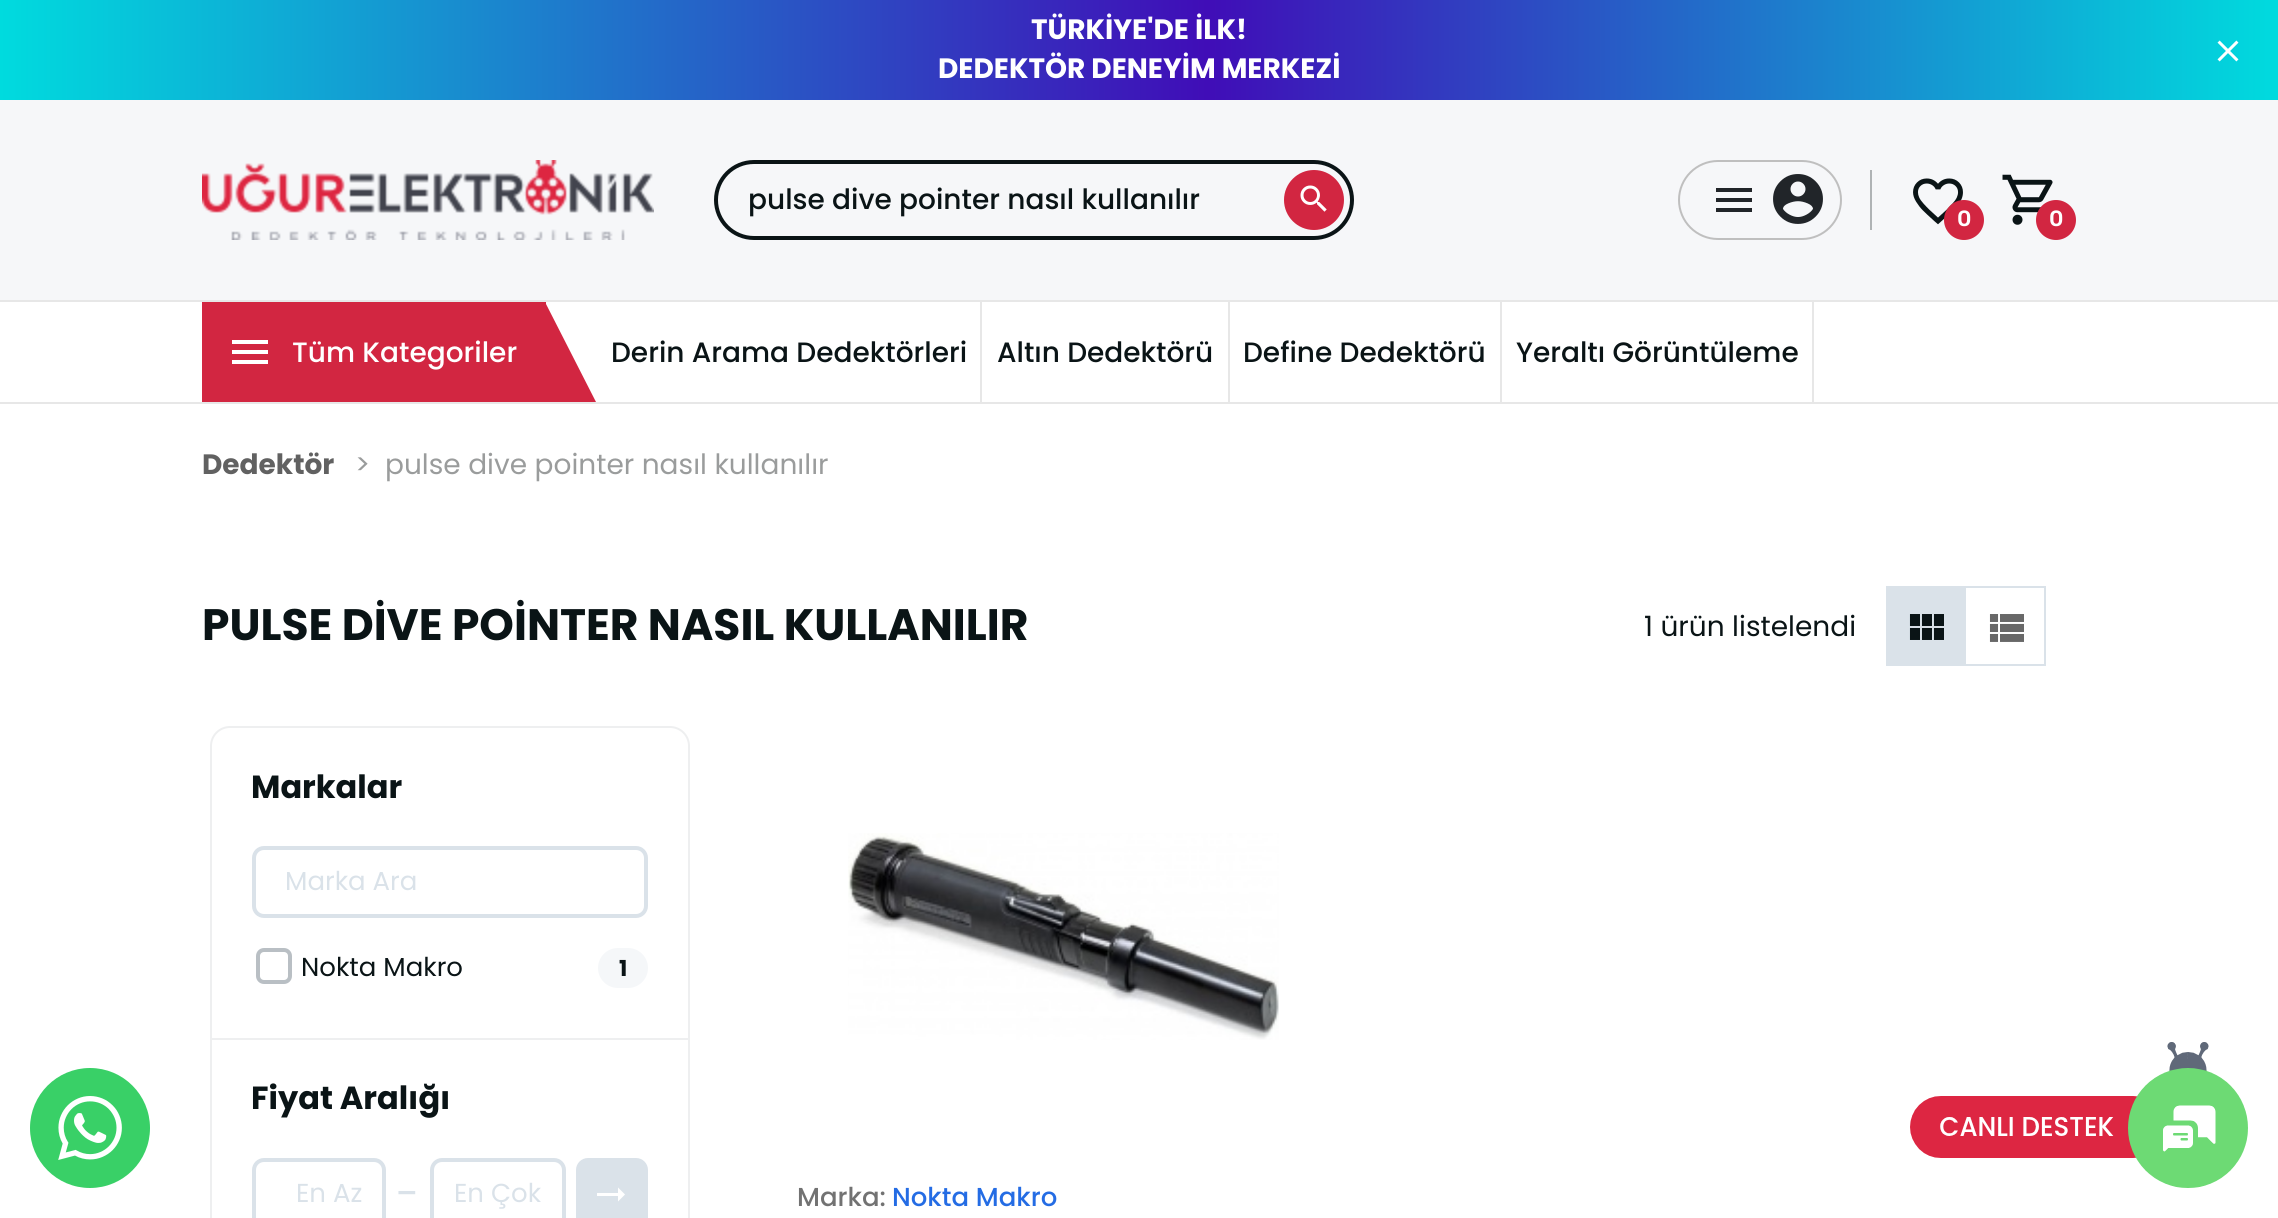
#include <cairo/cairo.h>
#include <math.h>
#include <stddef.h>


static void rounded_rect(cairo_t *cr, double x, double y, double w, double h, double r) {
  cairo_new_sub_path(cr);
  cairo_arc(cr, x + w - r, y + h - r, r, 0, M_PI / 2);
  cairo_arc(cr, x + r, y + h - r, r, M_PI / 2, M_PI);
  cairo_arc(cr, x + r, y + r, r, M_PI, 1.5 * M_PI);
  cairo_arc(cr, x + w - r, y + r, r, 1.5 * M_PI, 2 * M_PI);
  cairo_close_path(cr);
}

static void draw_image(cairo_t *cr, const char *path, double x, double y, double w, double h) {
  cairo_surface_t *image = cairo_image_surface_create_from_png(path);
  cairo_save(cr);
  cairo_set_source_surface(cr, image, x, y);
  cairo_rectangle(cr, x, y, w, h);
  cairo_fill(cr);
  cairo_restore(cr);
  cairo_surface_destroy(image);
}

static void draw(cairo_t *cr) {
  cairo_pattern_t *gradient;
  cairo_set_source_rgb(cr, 1, 1, 1);
  cairo_paint(cr);
  gradient = cairo_pattern_create_linear(0, 50, 2278, 50);
  cairo_pattern_add_color_stop_rgba(gradient, 0, 0, 219 / 255.0, 222 / 255.0, 1);
  cairo_pattern_add_color_stop_rgba(gradient, 0.53, 64 / 255.0, 13 / 255.0, 183 / 255.0, 1);
  cairo_pattern_add_color_stop_rgba(gradient, 1, 0, 219 / 255.0, 222 / 255.0, 1);
  cairo_set_source(cr, gradient);
  cairo_pattern_destroy(gradient);
  cairo_rectangle(cr, 0, 0, 2278, 100);
  cairo_fill(cr);
  draw_image(cr, "images/1.png", 2217, 40, 22, 22);
  cairo_set_source_rgb(cr, 246 / 255.0, 247 / 255.0, 249 / 255.0);
  cairo_rectangle(cr, 0, 100, 2278, 200);
  cairo_fill(cr);
  draw_image(cr, "images/2.png", 202, 160, 452, 80);
  rounded_rect(cr, 716, 162, 636, 76, 38);
  cairo_set_source_rgb(cr, 10 / 255.0, 20 / 255.0, 22 / 255.0);
  cairo_set_line_width(cr, 4);
  cairo_stroke(cr);
  cairo_set_source_rgb(cr, 210 / 255.0, 38 / 255.0, 65 / 255.0);
  cairo_arc(cr, 1314, 200, 30, 0, 2 * M_PI);
  cairo_fill(cr);
  draw_image(cr, "images/3.png", 1300, 185, 27, 27);
  rounded_rect(cr, 1679, 161, 162, 78, 39);
  cairo_set_source_rgb(cr, 191 / 255.0, 191 / 255.0, 191 / 255.0);
  cairo_set_line_width(cr, 2);
  cairo_stroke(cr);
  cairo_set_source_rgb(cr, 33 / 255.0, 37 / 255.0, 41 / 255.0);
  cairo_new_path(cr);
  cairo_move_to(cr, 1716, 188);
  cairo_line_to(cr, 1752, 188);
  cairo_line_to(cr, 1752, 192);
  cairo_line_to(cr, 1716, 192);
  cairo_close_path(cr);
  cairo_move_to(cr, 1716, 202);
  cairo_line_to(cr, 1716, 198);
  cairo_line_to(cr, 1752, 198);
  cairo_line_to(cr, 1752, 202);
  cairo_close_path(cr);
  cairo_move_to(cr, 1716, 212);
  cairo_line_to(cr, 1716, 208);
  cairo_line_to(cr, 1752, 208);
  cairo_line_to(cr, 1752, 212);
  cairo_close_path(cr);
  cairo_fill(cr);
  draw_image(cr, "images/4.png", 1773, 174, 50, 50);
  cairo_set_source_rgb(cr, 175 / 255.0, 179 / 255.0, 181 / 255.0);
  cairo_rectangle(cr, 1870, 170, 2, 60);
  cairo_fill(cr);
  draw_image(cr, "images/5.png", 1913, 178, 50, 47);
  cairo_set_source_rgb(cr, 210 / 255.0, 38 / 255.0, 65 / 255.0);
  cairo_arc(cr, 1964, 220, 20, 0, 2 * M_PI);
  cairo_fill(cr);
  draw_image(cr, "images/6.png", 2002, 174, 51, 51);
  cairo_arc(cr, 2056, 220, 20, 0, 2 * M_PI);
  cairo_fill(cr);
  cairo_set_source_rgb(cr, 231 / 255.0, 231 / 255.0, 231 / 255.0);
  cairo_rectangle(cr, 0, 300, 2278, 2);
  cairo_fill(cr);
  cairo_rectangle(cr, 0, 402, 2278, 2);
  cairo_fill(cr);
  cairo_set_source_rgb(cr, 210 / 255.0, 38 / 255.0, 65 / 255.0);
  cairo_rectangle(cr, 202, 302, 344, 100);
  cairo_fill(cr);
  cairo_set_source_rgb(cr, 1, 1, 1);
  cairo_new_path(cr);
  cairo_move_to(cr, 232, 340);
  cairo_line_to(cr, 268, 340);
  cairo_line_to(cr, 268, 344);
  cairo_line_to(cr, 232, 344);
  cairo_close_path(cr);
  cairo_move_to(cr, 232, 354);
  cairo_line_to(cr, 232, 350);
  cairo_line_to(cr, 268, 350);
  cairo_line_to(cr, 268, 354);
  cairo_close_path(cr);
  cairo_move_to(cr, 232, 364);
  cairo_line_to(cr, 232, 360);
  cairo_line_to(cr, 268, 360);
  cairo_line_to(cr, 268, 364);
  cairo_close_path(cr);
  cairo_fill(cr);
  cairo_set_source_rgb(cr, 210 / 255.0, 38 / 255.0, 65 / 255.0);
  cairo_new_path(cr);
  cairo_move_to(cr, 596, 402);
  cairo_line_to(cr, 546, 402);
  cairo_line_to(cr, 546, 304);
  cairo_close_path(cr);
  cairo_fill(cr);
  cairo_set_source_rgb(cr, 231 / 255.0, 231 / 255.0, 231 / 255.0);
  cairo_rectangle(cr, 980, 302, 2, 100);
  cairo_fill(cr);
  cairo_rectangle(cr, 1228, 302, 2, 100);
  cairo_fill(cr);
  cairo_rectangle(cr, 1500, 302, 2, 100);
  cairo_fill(cr);
  cairo_rectangle(cr, 1812, 302, 2, 100);
  cairo_fill(cr);
  cairo_set_source_rgb(cr, 57 / 255.0, 208 / 255.0, 103 / 255.0);
  cairo_arc(cr, 90, 1128, 60, 0, 2 * M_PI);
  cairo_fill(cr);
  draw_image(cr, "images/7.png", 58, 1096, 64, 64);
  cairo_set_source_rgb(cr, 218 / 255.0, 226 / 255.0, 233 / 255.0);
  cairo_rectangle(cr, 1886, 586, 80, 80);
  cairo_fill(cr);
  draw_image(cr, "images/8.png", 1909, 614, 35, 26);
  cairo_rectangle(cr, 1966, 586, 80, 2);
  cairo_fill(cr);
  cairo_rectangle(cr, 2044, 586, 2, 80);
  cairo_fill(cr);
  cairo_rectangle(cr, 1966, 664, 80, 2);
  cairo_fill(cr);
  draw_image(cr, "images/9.png", 1989, 614, 35, 28);
  rounded_rect(cr, 211, 727, 478, 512, 19);
  cairo_set_source_rgb(cr, 238 / 255.0, 239 / 255.0, 240 / 255.0);
  cairo_stroke(cr);
  cairo_rectangle(cr, 212, 1038, 476, 2);
  cairo_fill(cr);
  rounded_rect(cr, 254, 848, 392, 68, 10);
  cairo_set_source_rgb(cr, 218 / 255.0, 226 / 255.0, 233 / 255.0);
  cairo_set_line_width(cr, 4);
  cairo_stroke(cr);
  rounded_rect(cr, 258, 950, 32, 32, 6);
  cairo_set_source_rgb(cr, 185 / 255.0, 191 / 255.0, 196 / 255.0);
  cairo_stroke(cr);
  cairo_set_source_rgb(cr, 245 / 255.0, 247 / 255.0, 249 / 255.0);
  rounded_rect(cr, 598, 948, 50, 40, 20);
  cairo_fill(cr);
  rounded_rect(cr, 254, 1160, 130, 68, 10);
  cairo_set_source_rgb(cr, 218 / 255.0, 226 / 255.0, 233 / 255.0);
  cairo_stroke(cr);
  rounded_rect(cr, 432, 1160, 132, 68, 10);
  cairo_stroke(cr);
  rounded_rect(cr, 576, 1158, 72, 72, 12);
  cairo_fill(cr);
  cairo_set_source_rgb(cr, 1, 1, 1);
  cairo_new_path(cr);
  cairo_move_to(cr, 618, 1193);
  cairo_line_to(cr, 618, 1187.5);
  cairo_line_to(cr, 625, 1194.5);
  cairo_line_to(cr, 618, 1201.5);
  cairo_line_to(cr, 618, 1196);
  cairo_line_to(cr, 597, 1196);
  cairo_line_to(cr, 597, 1193);
  cairo_close_path(cr);
  cairo_fill(cr);
  draw_image(cr, "images/10.png", 848, 833, 431, 207);
  draw_image(cr, "images/11.png", 1910, 1042, 338, 146);
  cairo_select_font_face(cr, "Poppins", CAIRO_FONT_SLANT_NORMAL, CAIRO_FONT_WEIGHT_BOLD);
  cairo_set_font_size(cr, 28);
  cairo_move_to(cr, 1031, 39);
  cairo_show_text(cr, "TÜRKİYE'DE İLK!");
  cairo_move_to(cr, 938, 78);
  cairo_show_text(cr, "DEDEKTÖR DENEYİM MERKEZİ");
  cairo_select_font_face(cr, "Poppins Medium", CAIRO_FONT_SLANT_NORMAL, CAIRO_FONT_WEIGHT_NORMAL);
  cairo_set_source_rgb(cr, 10 / 255.0, 20 / 255.0, 22 / 255.0);
  cairo_move_to(cr, 748, 209);
  cairo_show_text(cr, "pulse dive pointer nasıl kullanılır");
  cairo_select_font_face(cr, "Rubik Medium", CAIRO_FONT_SLANT_NORMAL, CAIRO_FONT_WEIGHT_NORMAL);
  cairo_set_font_size(cr, 22);
  cairo_set_source_rgb(cr, 1, 1, 1);
  cairo_move_to(cr, 1957, 226);
  cairo_show_text(cr, "0");
  cairo_move_to(cr, 2049, 226);
  cairo_show_text(cr, "0");
  cairo_select_font_face(cr, "Poppins Medium", CAIRO_FONT_SLANT_NORMAL, CAIRO_FONT_WEIGHT_NORMAL);
  cairo_set_font_size(cr, 28);
  cairo_move_to(cr, 292, 362);
  cairo_show_text(cr, "Tüm Kategoriler");
  cairo_set_source_rgb(cr, 10 / 255.0, 20 / 255.0, 22 / 255.0);
  cairo_move_to(cr, 611, 362);
  cairo_show_text(cr, "Derin Arama Dedektörleri");
  cairo_move_to(cr, 997, 362);
  cairo_show_text(cr, "Altın Dedektörü");
  cairo_move_to(cr, 1243, 362);
  cairo_show_text(cr, "Define Dedektörü");
  cairo_move_to(cr, 1516, 362);
  cairo_show_text(cr, "Yeraltı Görüntüleme");
  cairo_select_font_face(cr, "Poppins", CAIRO_FONT_SLANT_NORMAL, CAIRO_FONT_WEIGHT_BOLD);
  cairo_set_source_rgb(cr, 97 / 255.0, 97 / 255.0, 97 / 255.0);
  cairo_move_to(cr, 202, 474);
  cairo_show_text(cr, "Dedektör");
  cairo_select_font_face(cr, "Poppins", CAIRO_FONT_SLANT_NORMAL, CAIRO_FONT_WEIGHT_NORMAL);
  cairo_set_source_rgb(cr, 154 / 255.0, 156 / 255.0, 156 / 255.0);
  cairo_move_to(cr, 355, 474);
  cairo_show_text(cr, ">");
  cairo_move_to(cr, 385, 474);
  cairo_show_text(cr, "pulse dive pointer nasıl kullanılır");
  cairo_select_font_face(cr, "Poppins", CAIRO_FONT_SLANT_NORMAL, CAIRO_FONT_WEIGHT_BOLD);
  cairo_set_font_size(cr, 44);
  cairo_set_source_rgb(cr, 10 / 255.0, 20 / 255.0, 22 / 255.0);
  cairo_move_to(cr, 202, 640);
  cairo_show_text(cr, "PULSE DİVE POİNTER NASIL KULLANILIR");
  cairo_select_font_face(cr, "Poppins", CAIRO_FONT_SLANT_NORMAL, CAIRO_FONT_WEIGHT_NORMAL);
  cairo_set_font_size(cr, 28);
  cairo_move_to(cr, 1644, 636);
  cairo_show_text(cr, "1 ürün listelendi");
  cairo_select_font_face(cr, "Poppins", CAIRO_FONT_SLANT_NORMAL, CAIRO_FONT_WEIGHT_BOLD);
  cairo_set_font_size(cr, 32);
  cairo_move_to(cr, 251, 798);
  cairo_show_text(cr, "Markalar");
  cairo_select_font_face(cr, "Poppins", CAIRO_FONT_SLANT_NORMAL, CAIRO_FONT_WEIGHT_NORMAL);
  cairo_set_font_size(cr, 26);
  cairo_set_source_rgb(cr, 218 / 255.0, 226 / 255.0, 233 / 255.0);
  cairo_move_to(cr, 285, 890);
  cairo_show_text(cr, "Marka Ara");
  cairo_set_source_rgb(cr, 10 / 255.0, 20 / 255.0, 22 / 255.0);
  cairo_move_to(cr, 301, 976);
  cairo_show_text(cr, "Nokta Makro");
  cairo_select_font_face(cr, "Poppins", CAIRO_FONT_SLANT_NORMAL, CAIRO_FONT_WEIGHT_BOLD);
  cairo_set_font_size(cr, 22);
  cairo_move_to(cr, 619, 976);
  cairo_show_text(cr, "1");
  cairo_set_font_size(cr, 32);
  cairo_move_to(cr, 251, 1109);
  cairo_show_text(cr, "Fiyat Aralığı");
  cairo_select_font_face(cr, "Poppins", CAIRO_FONT_SLANT_NORMAL, CAIRO_FONT_WEIGHT_NORMAL);
  cairo_set_font_size(cr, 26);
  cairo_set_source_rgb(cr, 218 / 255.0, 226 / 255.0, 233 / 255.0);
  cairo_move_to(cr, 296, 1202);
  cairo_show_text(cr, "En Az");
  cairo_set_font_size(cr, 42);
  cairo_move_to(cr, 396, 1208);
  cairo_show_text(cr, "-");
  cairo_set_font_size(cr, 26);
  cairo_move_to(cr, 454, 1202);
  cairo_show_text(cr, "En Çok");
  cairo_select_font_face(cr, "Poppins Medium", CAIRO_FONT_SLANT_NORMAL, CAIRO_FONT_WEIGHT_NORMAL);
  cairo_set_source_rgb(cr, 114 / 255.0, 114 / 255.0, 114 / 255.0);
  cairo_move_to(cr, 797, 1206);
  cairo_show_text(cr, "Marka:");
  cairo_set_source_rgb(cr, 36 / 255.0, 108 / 255.0, 228 / 255.0);
  cairo_move_to(cr, 892, 1206);
  cairo_show_text(cr, "Nokta Makro");
}

int main(void) {
  cairo_surface_t *surface = cairo_image_surface_create(CAIRO_FORMAT_RGB24, 2278, 1218);
  cairo_t *cr = cairo_create(surface);
  cairo_font_options_t *options = cairo_font_options_create();
  cairo_font_options_set_hint_metrics(options, CAIRO_HINT_METRICS_OFF);
  cairo_font_options_set_hint_style(options, CAIRO_HINT_STYLE_NONE);
  cairo_set_font_options(cr, options);
  cairo_set_miter_limit(cr, 4);
  draw(cr);
  cairo_surface_write_to_png(surface, "out.png");
  cairo_font_options_destroy(options);
  cairo_destroy(cr);
  cairo_surface_destroy(surface);
  return 0;
}
